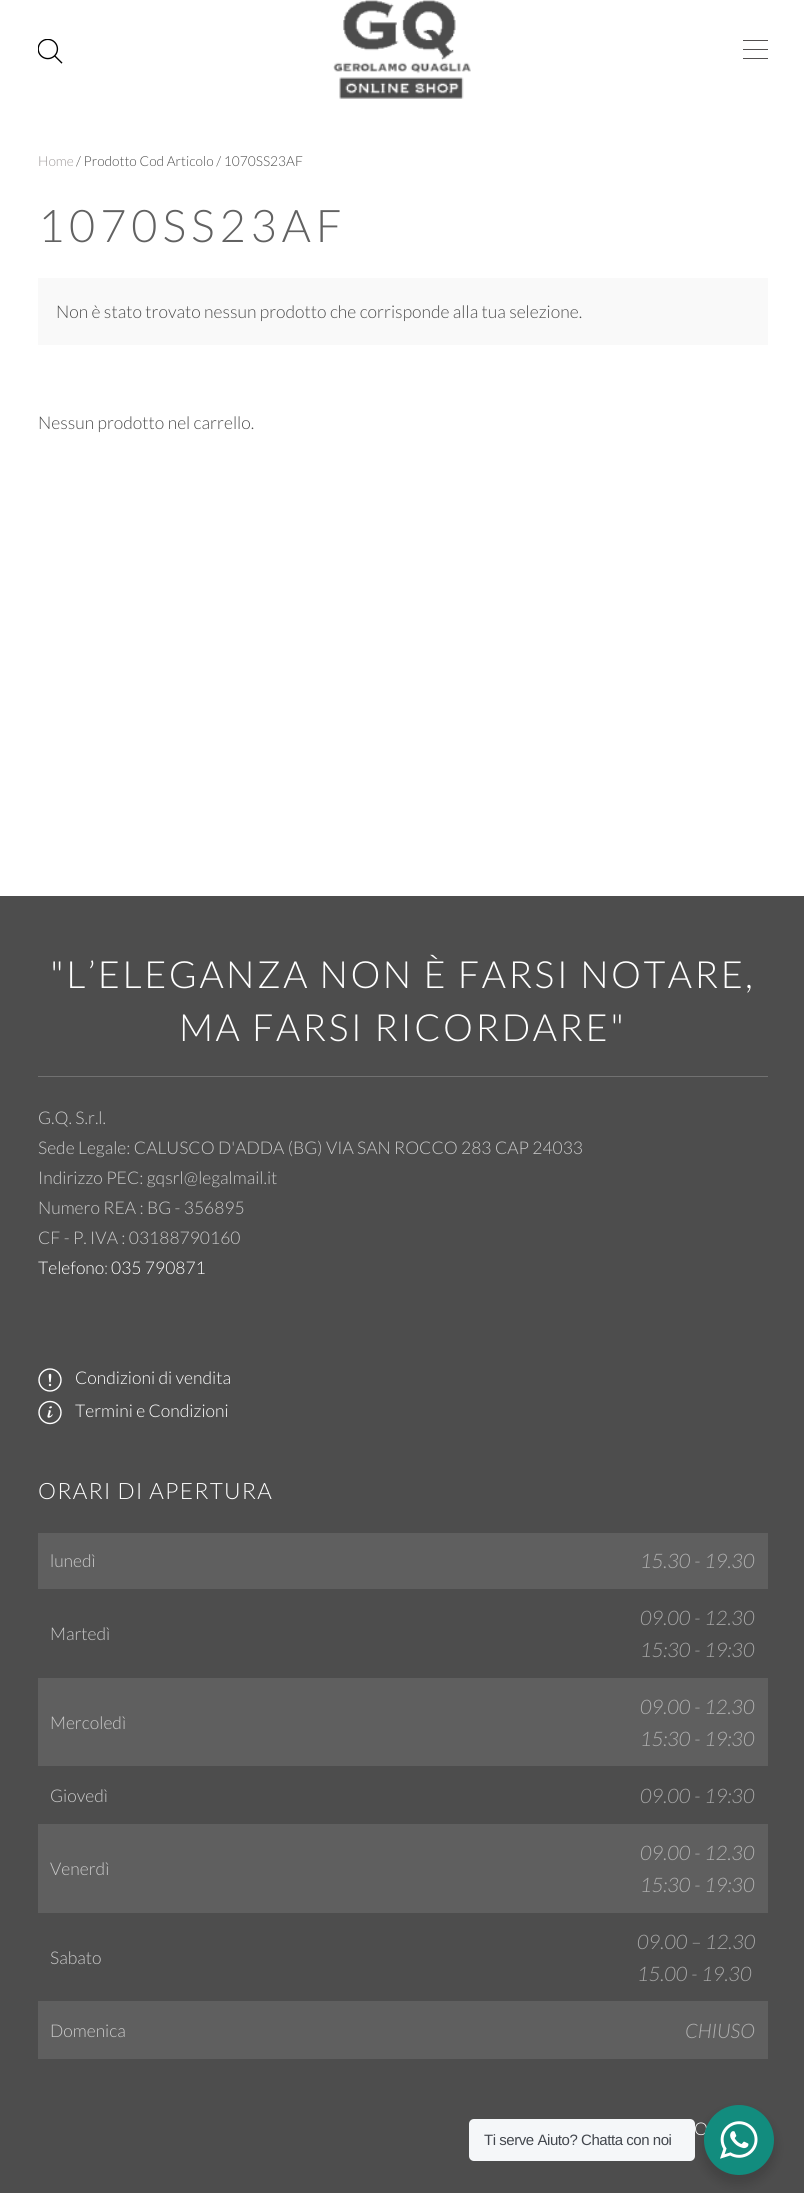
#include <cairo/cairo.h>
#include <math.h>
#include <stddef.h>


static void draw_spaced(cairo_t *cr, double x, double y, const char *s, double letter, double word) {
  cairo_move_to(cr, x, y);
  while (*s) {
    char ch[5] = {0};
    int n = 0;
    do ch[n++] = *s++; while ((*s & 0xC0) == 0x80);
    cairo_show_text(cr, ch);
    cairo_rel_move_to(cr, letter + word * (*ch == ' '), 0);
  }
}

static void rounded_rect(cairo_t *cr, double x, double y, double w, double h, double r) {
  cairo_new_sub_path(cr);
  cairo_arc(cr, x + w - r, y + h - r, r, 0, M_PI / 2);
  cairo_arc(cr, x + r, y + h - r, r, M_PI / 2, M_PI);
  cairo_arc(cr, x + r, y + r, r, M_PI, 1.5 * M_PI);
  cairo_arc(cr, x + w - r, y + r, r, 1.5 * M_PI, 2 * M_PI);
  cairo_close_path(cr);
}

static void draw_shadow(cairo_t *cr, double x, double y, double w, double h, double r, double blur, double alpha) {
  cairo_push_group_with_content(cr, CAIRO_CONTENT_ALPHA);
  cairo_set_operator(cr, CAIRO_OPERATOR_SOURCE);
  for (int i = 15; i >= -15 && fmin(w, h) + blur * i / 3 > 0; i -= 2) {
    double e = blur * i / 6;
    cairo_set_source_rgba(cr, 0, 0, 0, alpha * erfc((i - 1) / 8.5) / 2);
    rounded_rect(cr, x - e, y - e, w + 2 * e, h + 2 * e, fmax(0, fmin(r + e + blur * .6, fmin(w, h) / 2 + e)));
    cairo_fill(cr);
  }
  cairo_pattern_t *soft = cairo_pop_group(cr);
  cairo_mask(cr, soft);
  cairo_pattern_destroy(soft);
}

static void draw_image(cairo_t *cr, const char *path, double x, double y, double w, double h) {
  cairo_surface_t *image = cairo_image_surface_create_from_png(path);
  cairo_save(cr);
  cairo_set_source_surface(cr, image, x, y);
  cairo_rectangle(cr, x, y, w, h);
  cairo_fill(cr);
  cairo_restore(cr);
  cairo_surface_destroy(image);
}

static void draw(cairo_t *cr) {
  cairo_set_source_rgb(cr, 1, 1, 1);
  cairo_paint(cr);
  draw_image(cr, "images/1.png", 38, 39, 25, 25);
  draw_image(cr, "images/2.png", 333, 0, 138, 99);
  cairo_set_source_rgb(cr, 82 / 255.0, 79 / 255.0, 79 / 255.0);
  cairo_rectangle(cr, 743, 40, 25, 1);
  cairo_fill(cr);
  cairo_rectangle(cr, 743, 49, 25, 1);
  cairo_fill(cr);
  cairo_rectangle(cr, 743, 58, 25, 1);
  cairo_fill(cr);
  cairo_set_source_rgb(cr, 249 / 255.0, 249 / 255.0, 249 / 255.0);
  cairo_rectangle(cr, 38, 278, 730, 67);
  cairo_fill(cr);
  cairo_set_source_rgb(cr, 77 / 255.0, 77 / 255.0, 77 / 255.0);
  cairo_rectangle(cr, 0, 896, 804, 1297);
  cairo_fill(cr);
  cairo_set_source_rgb(cr, 113 / 255.0, 113 / 255.0, 113 / 255.0);
  cairo_rectangle(cr, 38, 1076, 730, 1);
  cairo_fill(cr);
  draw_image(cr, "images/3.png", 38, 1368, 24, 24);
  draw_image(cr, "images/4.png", 38, 1400, 24, 25);
  cairo_set_source_rgb(cr, 95 / 255.0, 95 / 255.0, 95 / 255.0);
  cairo_rectangle(cr, 38, 1533, 730, 56);
  cairo_fill(cr);
  cairo_rectangle(cr, 38, 1678, 730, 88);
  cairo_fill(cr);
  cairo_rectangle(cr, 38, 1824, 730, 89);
  cairo_fill(cr);
  cairo_rectangle(cr, 38, 2001, 730, 58);
  cairo_fill(cr);
  cairo_set_source_rgb(cr, 0, 0, 0);
  draw_shadow(cr, 701, 2110, 75, 75, 37.5, 5, 0.14);
  cairo_set_source_rgb(cr, 245 / 255.0, 247 / 255.0, 249 / 255.0);
  rounded_rect(cr, 469, 2119, 226, 42, 5);
  cairo_fill(cr);
  cairo_select_font_face(cr, "Lato Light", CAIRO_FONT_SLANT_NORMAL, CAIRO_FONT_WEIGHT_NORMAL);
  cairo_set_font_size(cr, 13.75);
  cairo_set_source_rgb(cr, 159 / 255.0, 155 / 255.0, 155 / 255.0);
  cairo_move_to(cr, 38, 166);
  cairo_show_text(cr, "Home");
  cairo_set_source_rgb(cr, 77 / 255.0, 77 / 255.0, 77 / 255.0);
  cairo_move_to(cr, 76, 166);
  cairo_show_text(cr, "/ Prodotto Cod Articolo / 1070SS23AF");
  cairo_set_font_size(cr, 45);
  cairo_set_source_rgb(cr, 98 / 255.0, 98 / 255.0, 98 / 255.0);
  draw_spaced(cr, 38, 242, "1070SS23AF", 5, 0);
  cairo_set_font_size(cr, 17.5);
  cairo_set_source_rgb(cr, 77 / 255.0, 77 / 255.0, 77 / 255.0);
  cairo_move_to(cr, 56, 318);
  cairo_show_text(cr, "Non è stato trovato nessun prodotto che corrisponde alla tua selezione.");
  cairo_move_to(cr, 38, 429);
  cairo_show_text(cr, "Nessun prodotto nel carrello.");
  cairo_set_font_size(cr, 37.5);
  cairo_set_source_rgb(cr, 1, 1, 1);
  draw_spaced(cr, 50, 988, "\"L’ELEGANZA NON È FARSI NOTARE,", 2.5, 0);
  draw_spaced(cr, 179, 1041, "MA FARSI RICORDARE\"", 2.5, 0);
  cairo_set_font_size(cr, 17.5);
  cairo_set_source_rgb(cr, 202 / 255.0, 202 / 255.0, 202 / 255.0);
  cairo_move_to(cr, 38, 1124);
  cairo_show_text(cr, "G.Q. S.r.l.");
  cairo_move_to(cr, 38, 1154);
  cairo_show_text(cr, "Sede Legale: CALUSCO D'ADDA (BG) VIA SAN ROCCO 283 CAP 24033");
  cairo_move_to(cr, 38, 1184);
  cairo_show_text(cr, "Indirizzo PEC: gqsrl@legalmail.it");
  cairo_move_to(cr, 38, 1214);
  cairo_show_text(cr, "Numero REA : BG - 356895");
  cairo_move_to(cr, 38, 1244);
  cairo_show_text(cr, "CF - P. IVA : 03188790160");
  cairo_set_source_rgb(cr, 1, 1, 1);
  cairo_move_to(cr, 38, 1274);
  cairo_show_text(cr, "Telefono");
  cairo_set_source_rgb(cr, 202 / 255.0, 202 / 255.0, 202 / 255.0);
  cairo_move_to(cr, 104, 1274);
  cairo_show_text(cr, ":");
  cairo_set_source_rgb(cr, 1, 1, 1);
  cairo_move_to(cr, 111, 1274);
  cairo_show_text(cr, "035 790871");
  cairo_move_to(cr, 75, 1384);
  cairo_show_text(cr, "Condizioni di vendita");
  cairo_move_to(cr, 75, 1417);
  cairo_show_text(cr, "Termini e Condizioni");
  cairo_set_font_size(cr, 22.5);
  draw_spaced(cr, 38, 1499, "ORARI DI APERTURA", 1.25, 0);
  cairo_set_font_size(cr, 17.5);
  cairo_set_source_rgb(cr, 202 / 255.0, 202 / 255.0, 202 / 255.0);
  cairo_move_to(cr, 50, 1567);
  cairo_show_text(cr, "lunedì");
  cairo_select_font_face(cr, "Lato Light", CAIRO_FONT_SLANT_ITALIC, CAIRO_FONT_WEIGHT_NORMAL);
  cairo_set_font_size(cr, 20);
  cairo_set_source_rgb(cr, 175 / 255.0, 175 / 255.0, 175 / 255.0);
  cairo_move_to(cr, 640, 1568);
  cairo_show_text(cr, "15.30 - 19.30");
  cairo_select_font_face(cr, "Lato Light", CAIRO_FONT_SLANT_NORMAL, CAIRO_FONT_WEIGHT_NORMAL);
  cairo_set_font_size(cr, 17.5);
  cairo_set_source_rgb(cr, 202 / 255.0, 202 / 255.0, 202 / 255.0);
  cairo_move_to(cr, 50, 1640);
  cairo_show_text(cr, "Martedì");
  cairo_select_font_face(cr, "Lato Light", CAIRO_FONT_SLANT_ITALIC, CAIRO_FONT_WEIGHT_NORMAL);
  cairo_set_font_size(cr, 20);
  cairo_set_source_rgb(cr, 166 / 255.0, 166 / 255.0, 166 / 255.0);
  cairo_move_to(cr, 640, 1625);
  cairo_show_text(cr, "09.00 - 12.30");
  cairo_move_to(cr, 640, 1657);
  cairo_show_text(cr, "15:30 - 19:30");
  cairo_select_font_face(cr, "Lato Light", CAIRO_FONT_SLANT_NORMAL, CAIRO_FONT_WEIGHT_NORMAL);
  cairo_set_font_size(cr, 17.5);
  cairo_set_source_rgb(cr, 202 / 255.0, 202 / 255.0, 202 / 255.0);
  cairo_move_to(cr, 50, 1729);
  cairo_show_text(cr, "Mercoledì");
  cairo_select_font_face(cr, "Lato Light", CAIRO_FONT_SLANT_ITALIC, CAIRO_FONT_WEIGHT_NORMAL);
  cairo_set_font_size(cr, 20);
  cairo_set_source_rgb(cr, 175 / 255.0, 175 / 255.0, 175 / 255.0);
  cairo_move_to(cr, 640, 1714);
  cairo_show_text(cr, "09.00 - 12.30");
  cairo_move_to(cr, 640, 1746);
  cairo_show_text(cr, "15:30 - 19:30");
  cairo_select_font_face(cr, "Lato Light", CAIRO_FONT_SLANT_NORMAL, CAIRO_FONT_WEIGHT_NORMAL);
  cairo_set_font_size(cr, 17.5);
  cairo_set_source_rgb(cr, 202 / 255.0, 202 / 255.0, 202 / 255.0);
  cairo_move_to(cr, 50, 1802);
  cairo_show_text(cr, "Giovedì");
  cairo_select_font_face(cr, "Lato Light", CAIRO_FONT_SLANT_ITALIC, CAIRO_FONT_WEIGHT_NORMAL);
  cairo_set_font_size(cr, 20);
  cairo_set_source_rgb(cr, 166 / 255.0, 166 / 255.0, 166 / 255.0);
  cairo_move_to(cr, 640, 1803);
  cairo_show_text(cr, "09.00 - 19:30");
  cairo_select_font_face(cr, "Lato Light", CAIRO_FONT_SLANT_NORMAL, CAIRO_FONT_WEIGHT_NORMAL);
  cairo_set_font_size(cr, 17.5);
  cairo_set_source_rgb(cr, 202 / 255.0, 202 / 255.0, 202 / 255.0);
  cairo_move_to(cr, 50, 1875);
  cairo_show_text(cr, "Venerdì");
  cairo_select_font_face(cr, "Lato Light", CAIRO_FONT_SLANT_ITALIC, CAIRO_FONT_WEIGHT_NORMAL);
  cairo_set_font_size(cr, 20);
  cairo_set_source_rgb(cr, 175 / 255.0, 175 / 255.0, 175 / 255.0);
  cairo_move_to(cr, 640, 1860);
  cairo_show_text(cr, "09.00 - 12.30");
  cairo_move_to(cr, 640, 1892);
  cairo_show_text(cr, "15:30 - 19:30");
  cairo_select_font_face(cr, "Lato Light", CAIRO_FONT_SLANT_NORMAL, CAIRO_FONT_WEIGHT_NORMAL);
  cairo_set_font_size(cr, 17.5);
  cairo_set_source_rgb(cr, 202 / 255.0, 202 / 255.0, 202 / 255.0);
  cairo_move_to(cr, 50, 1964);
  cairo_show_text(cr, "Sabato");
  cairo_select_font_face(cr, "Lato Light", CAIRO_FONT_SLANT_ITALIC, CAIRO_FONT_WEIGHT_NORMAL);
  cairo_set_font_size(cr, 20);
  cairo_set_source_rgb(cr, 166 / 255.0, 166 / 255.0, 166 / 255.0);
  cairo_move_to(cr, 637, 1949);
  cairo_show_text(cr, "09.00 – 12.30");
  cairo_move_to(cr, 637, 1981);
  cairo_show_text(cr, "15.00 - 19.30");
  cairo_select_font_face(cr, "Lato Light", CAIRO_FONT_SLANT_NORMAL, CAIRO_FONT_WEIGHT_NORMAL);
  cairo_set_font_size(cr, 17.5);
  cairo_set_source_rgb(cr, 202 / 255.0, 202 / 255.0, 202 / 255.0);
  cairo_move_to(cr, 50, 2037);
  cairo_show_text(cr, "Domenica");
  cairo_select_font_face(cr, "Lato Light", CAIRO_FONT_SLANT_ITALIC, CAIRO_FONT_WEIGHT_NORMAL);
  cairo_set_font_size(cr, 20);
  cairo_set_source_rgb(cr, 175 / 255.0, 175 / 255.0, 175 / 255.0);
  cairo_move_to(cr, 685, 2038);
  cairo_show_text(cr, "CHIUSO");
  cairo_select_font_face(cr, "Lato Light", CAIRO_FONT_SLANT_NORMAL, CAIRO_FONT_WEIGHT_NORMAL);
  cairo_set_font_size(cr, 17.5);
  cairo_set_source_rgb(cr, 1, 1, 1);
  cairo_move_to(cr, 694, 2135);
  cairo_show_text(cr, "O");
  cairo_select_font_face(cr, "Liberation Sans", CAIRO_FONT_SLANT_NORMAL, CAIRO_FONT_WEIGHT_NORMAL);
  cairo_set_font_size(cr, 15);
  cairo_set_source_rgb(cr, 67 / 255.0, 71 / 255.0, 78 / 255.0);
  draw_spaced(cr, 484, 2145, "Ti serve Aiuto? Chatta con noi", -0.45, 0);
  cairo_set_source_rgb(cr, 18 / 255.0, 140 / 255.0, 126 / 255.0);
  cairo_new_path(cr);
  cairo_arc(cr, 739, 2140, 35, 0, 2 * M_PI);
  cairo_fill(cr);
  draw_image(cr, "images/5.png", 720, 2121, 38, 38);
}

int main(void) {
  cairo_surface_t *surface = cairo_image_surface_create(CAIRO_FORMAT_RGB24, 804, 2193);
  cairo_t *cr = cairo_create(surface);
  cairo_font_options_t *options = cairo_font_options_create();
  cairo_font_options_set_hint_metrics(options, CAIRO_HINT_METRICS_OFF);
  cairo_font_options_set_hint_style(options, CAIRO_HINT_STYLE_NONE);
  cairo_set_font_options(cr, options);
  cairo_set_miter_limit(cr, 4);
  draw(cr);
  cairo_surface_write_to_png(surface, "out.png");
  cairo_font_options_destroy(options);
  cairo_destroy(cr);
  cairo_surface_destroy(surface);
  return 0;
}
